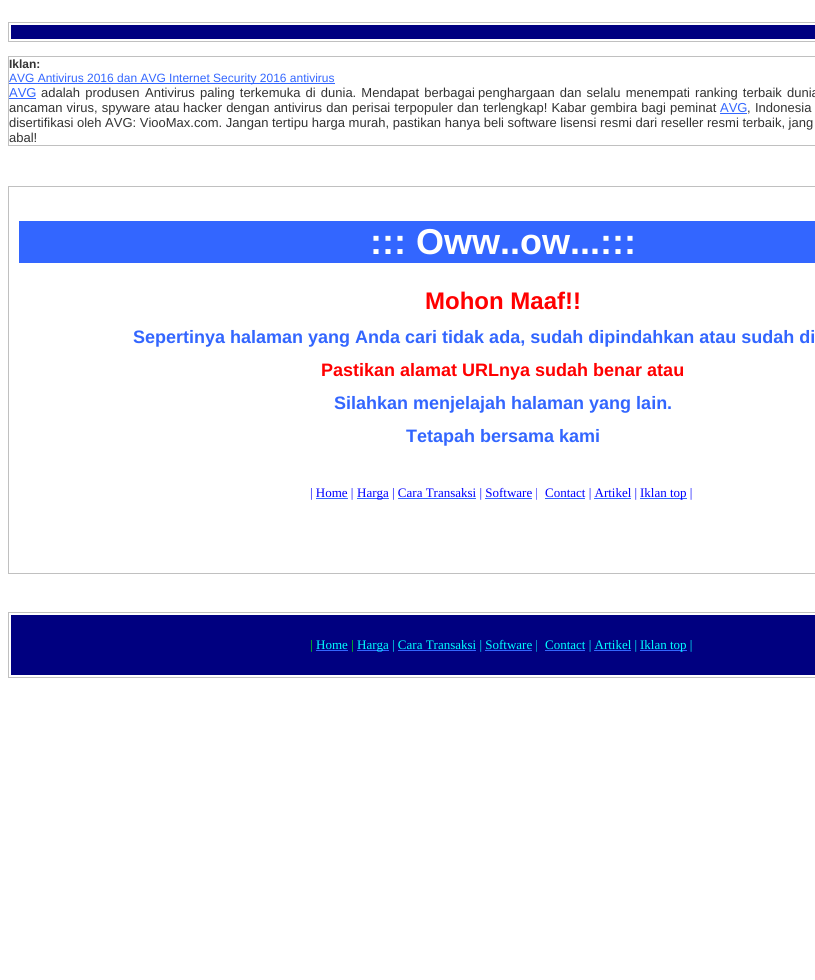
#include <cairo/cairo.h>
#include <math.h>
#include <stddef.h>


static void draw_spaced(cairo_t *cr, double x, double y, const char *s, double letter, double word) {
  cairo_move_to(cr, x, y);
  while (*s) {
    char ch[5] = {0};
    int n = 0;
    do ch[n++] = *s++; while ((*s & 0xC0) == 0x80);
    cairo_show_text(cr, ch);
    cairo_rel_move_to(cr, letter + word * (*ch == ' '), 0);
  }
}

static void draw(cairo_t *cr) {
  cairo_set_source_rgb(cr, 1, 1, 1);
  cairo_paint(cr);
  cairo_rectangle(cr, 8.5, 22.5, 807, 19);
  cairo_set_source_rgb(cr, 192 / 255.0, 192 / 255.0, 192 / 255.0);
  cairo_set_line_width(cr, 1);
  cairo_stroke(cr);
  cairo_set_source_rgb(cr, 0, 0, 128 / 255.0);
  cairo_rectangle(cr, 11, 25, 804, 14);
  cairo_fill(cr);
  cairo_set_source_rgb(cr, 192 / 255.0, 192 / 255.0, 192 / 255.0);
  cairo_rectangle(cr, 8, 56, 807, 1);
  cairo_fill(cr);
  cairo_rectangle(cr, 8, 145, 807, 1);
  cairo_fill(cr);
  cairo_rectangle(cr, 8, 56, 1, 90);
  cairo_fill(cr);
  cairo_set_source_rgb(cr, 51 / 255.0, 102 / 255.0, 1);
  cairo_rectangle(cr, 9, 83, 326, 1);
  cairo_fill(cr);
  cairo_rectangle(cr, 9, 98, 27, 1);
  cairo_fill(cr);
  cairo_rectangle(cr, 720, 113, 27, 1);
  cairo_fill(cr);
  cairo_rectangle(cr, 8.5, 186.5, 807, 387);
  cairo_set_source_rgb(cr, 192 / 255.0, 192 / 255.0, 192 / 255.0);
  cairo_stroke(cr);
  cairo_set_source_rgb(cr, 51 / 255.0, 102 / 255.0, 1);
  cairo_rectangle(cr, 19, 221, 796, 42);
  cairo_fill(cr);
  cairo_rectangle(cr, 357, 498, 32, 1);
  cairo_fill(cr);
  cairo_rectangle(cr, 545, 498, 40, 1);
  cairo_fill(cr);
  cairo_rectangle(cr, 640, 498, 47, 1);
  cairo_fill(cr);
  cairo_rectangle(cr, 8.5, 612.5, 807, 65);
  cairo_set_source_rgb(cr, 192 / 255.0, 192 / 255.0, 192 / 255.0);
  cairo_stroke(cr);
  cairo_set_source_rgb(cr, 0, 0, 128 / 255.0);
  cairo_rectangle(cr, 11, 615, 804, 60);
  cairo_fill(cr);
  cairo_set_source_rgb(cr, 51 / 255.0, 102 / 255.0, 1);
  cairo_rectangle(cr, 316, 650, 32, 1);
  cairo_fill(cr);
  cairo_rectangle(cr, 357, 650, 32, 1);
  cairo_fill(cr);
  cairo_rectangle(cr, 545, 650, 40, 1);
  cairo_fill(cr);
  cairo_rectangle(cr, 640, 650, 47, 1);
  cairo_fill(cr);
  cairo_select_font_face(cr, "Liberation Sans", CAIRO_FONT_SLANT_NORMAL, CAIRO_FONT_WEIGHT_BOLD);
  cairo_set_font_size(cr, 12);
  cairo_set_source_rgb(cr, 51 / 255.0, 51 / 255.0, 51 / 255.0);
  cairo_move_to(cr, 9, 68);
  cairo_show_text(cr, "Iklan:");
  cairo_select_font_face(cr, "Liberation Sans", CAIRO_FONT_SLANT_NORMAL, CAIRO_FONT_WEIGHT_NORMAL);
  cairo_set_source_rgb(cr, 51 / 255.0, 102 / 255.0, 1);
  cairo_move_to(cr, 9, 82);
  cairo_show_text(cr, "AVG Antivirus 2016 dan AVG Internet Security 2016 antivirus");
  cairo_set_font_size(cr, 13);
  cairo_move_to(cr, 9, 97);
  cairo_show_text(cr, "AVG");
  cairo_set_source_rgb(cr, 51 / 255.0, 51 / 255.0, 51 / 255.0);
  draw_spaced(cr, 41, 97, "adalah produsen", 0, 1.5);
  draw_spaced(cr, 145, 97, "Antivirus paling terkemuka di dunia. Mendapat berbagai", 0, 1.5);
  draw_spaced(cr, 478, 97, "penghargaan dan selalu menempati ranking terbaik dunia", 0, 1.5);
  draw_spaced(cr, 9, 112, "ancaman virus, spyware atau", 0, 0.5);
  draw_spaced(cr, 183, 112, "hacker dengan antivirus dan perisai terpopuler dan", 0, 0.5);
  draw_spaced(cr, 483, 112, "terlengkap! Kabar gembira bagi peminat", 0, 0.5);
  cairo_set_source_rgb(cr, 51 / 255.0, 102 / 255.0, 1);
  cairo_move_to(cr, 720, 112);
  cairo_show_text(cr, "AVG");
  cairo_set_source_rgb(cr, 51 / 255.0, 51 / 255.0, 51 / 255.0);
  cairo_move_to(cr, 747, 112);
  cairo_show_text(cr, ",");
  draw_spaced(cr, 755, 112, "Indonesia", 0, 0.5);
  cairo_move_to(cr, 9, 127);
  cairo_show_text(cr, "disertifikasi oleh AVG: ViooMax.com. Jangan tertipu harga murah, pastikan hanya beli software lisensi resmi dari reseller resmi terbaik, jang");
  cairo_move_to(cr, 9, 142);
  cairo_show_text(cr, "abal!");
  cairo_select_font_face(cr, "Liberation Sans", CAIRO_FONT_SLANT_NORMAL, CAIRO_FONT_WEIGHT_BOLD);
  cairo_set_font_size(cr, 36);
  cairo_set_source_rgb(cr, 1, 1, 1);
  cairo_move_to(cr, 370, 254);
  cairo_show_text(cr, "::: Oww..ow...:::");
  cairo_set_font_size(cr, 24);
  cairo_set_source_rgb(cr, 1, 0, 0);
  cairo_move_to(cr, 425, 309);
  cairo_show_text(cr, "Mohon Maaf!!");
  cairo_set_font_size(cr, 18);
  cairo_set_source_rgb(cr, 51 / 255.0, 102 / 255.0, 1);
  cairo_move_to(cr, 133, 343);
  cairo_show_text(cr, "Sepertinya halaman yang Anda cari tidak ada, sudah dipindahkan atau sudah di");
  cairo_set_source_rgb(cr, 1, 0, 0);
  cairo_move_to(cr, 321, 376);
  cairo_show_text(cr, "Pastikan alamat URLnya sudah benar atau");
  cairo_set_source_rgb(cr, 51 / 255.0, 102 / 255.0, 1);
  cairo_move_to(cr, 334, 409);
  cairo_show_text(cr, "Silahkan menjelajah halaman yang lain.");
  cairo_move_to(cr, 406, 442);
  cairo_show_text(cr, "Tetapah bersama kami");
  cairo_select_font_face(cr, "Liberation Serif", CAIRO_FONT_SLANT_NORMAL, CAIRO_FONT_WEIGHT_NORMAL);
  cairo_set_font_size(cr, 13);
  cairo_set_source_rgb(cr, 0, 0, 1);
  cairo_move_to(cr, 310, 497);
  cairo_show_text(cr, "| Home |");
  cairo_move_to(cr, 357, 497);
  cairo_show_text(cr, "Harga | Cara Transaksi | Software |");
  cairo_set_source_rgb(cr, 51 / 255.0, 102 / 255.0, 1);
  cairo_rectangle(cr, 398, 498, 78, 1);
  cairo_fill(cr);
  cairo_rectangle(cr, 485, 498, 47, 1);
  cairo_fill(cr);
  cairo_set_source_rgb(cr, 0, 0, 1);
  cairo_move_to(cr, 545, 497);
  cairo_show_text(cr, "Contact | Artikel |");
  cairo_set_source_rgb(cr, 51 / 255.0, 102 / 255.0, 1);
  cairo_rectangle(cr, 594, 498, 37, 1);
  cairo_fill(cr);
  cairo_set_source_rgb(cr, 0, 0, 1);
  cairo_move_to(cr, 640, 497);
  cairo_show_text(cr, "Iklan top |");
  cairo_set_source_rgb(cr, 51 / 255.0, 102 / 255.0, 1);
  cairo_rectangle(cr, 316, 498, 32, 1);
  cairo_fill(cr);
  cairo_set_source_rgb(cr, 0, 1, 0);
  cairo_move_to(cr, 310, 649);
  cairo_show_text(cr, "|");
  cairo_set_source_rgb(cr, 0, 1, 1);
  cairo_move_to(cr, 316, 649);
  cairo_show_text(cr, "Home");
  cairo_set_source_rgb(cr, 0, 1, 0);
  cairo_move_to(cr, 351, 649);
  cairo_show_text(cr, "|");
  cairo_set_source_rgb(cr, 0, 1, 1);
  cairo_move_to(cr, 357, 649);
  cairo_show_text(cr, "Harga | Cara Transaksi | Software |");
  cairo_set_source_rgb(cr, 51 / 255.0, 102 / 255.0, 1);
  cairo_rectangle(cr, 398, 650, 78, 1);
  cairo_fill(cr);
  cairo_rectangle(cr, 485, 650, 47, 1);
  cairo_fill(cr);
  cairo_set_source_rgb(cr, 0, 1, 1);
  cairo_move_to(cr, 545, 649);
  cairo_show_text(cr, "Contact | Artikel |");
  cairo_set_source_rgb(cr, 51 / 255.0, 102 / 255.0, 1);
  cairo_rectangle(cr, 594, 650, 37, 1);
  cairo_fill(cr);
  cairo_set_source_rgb(cr, 0, 1, 1);
  cairo_move_to(cr, 640, 649);
  cairo_show_text(cr, "Iklan top |");
}

int main(void) {
  cairo_surface_t *surface = cairo_image_surface_create(CAIRO_FORMAT_RGB24, 815, 980);
  cairo_t *cr = cairo_create(surface);
  cairo_font_options_t *options = cairo_font_options_create();
  cairo_font_options_set_hint_metrics(options, CAIRO_HINT_METRICS_OFF);
  cairo_font_options_set_hint_style(options, CAIRO_HINT_STYLE_NONE);
  cairo_set_font_options(cr, options);
  cairo_set_miter_limit(cr, 4);
  draw(cr);
  cairo_surface_write_to_png(surface, "out.png");
  cairo_font_options_destroy(options);
  cairo_destroy(cr);
  cairo_surface_destroy(surface);
  return 0;
}
